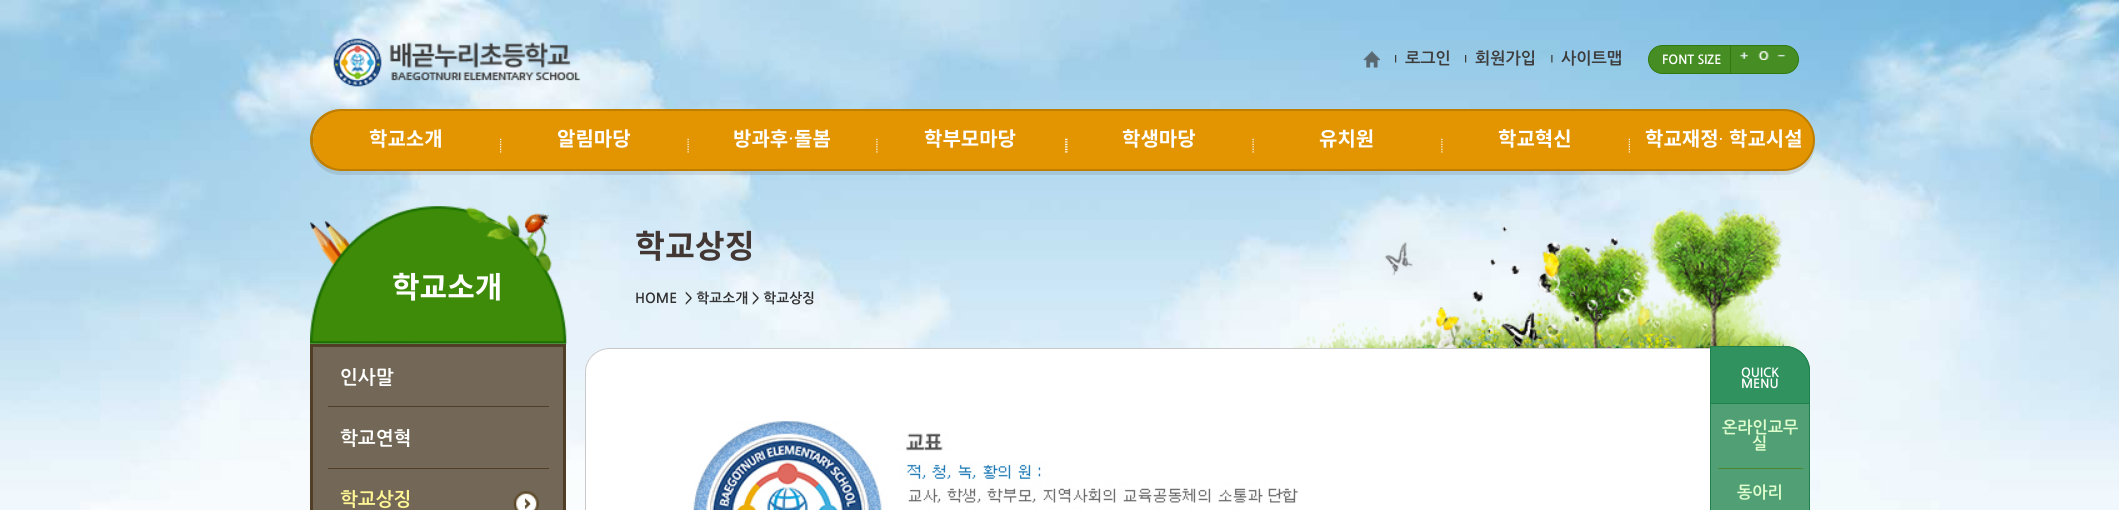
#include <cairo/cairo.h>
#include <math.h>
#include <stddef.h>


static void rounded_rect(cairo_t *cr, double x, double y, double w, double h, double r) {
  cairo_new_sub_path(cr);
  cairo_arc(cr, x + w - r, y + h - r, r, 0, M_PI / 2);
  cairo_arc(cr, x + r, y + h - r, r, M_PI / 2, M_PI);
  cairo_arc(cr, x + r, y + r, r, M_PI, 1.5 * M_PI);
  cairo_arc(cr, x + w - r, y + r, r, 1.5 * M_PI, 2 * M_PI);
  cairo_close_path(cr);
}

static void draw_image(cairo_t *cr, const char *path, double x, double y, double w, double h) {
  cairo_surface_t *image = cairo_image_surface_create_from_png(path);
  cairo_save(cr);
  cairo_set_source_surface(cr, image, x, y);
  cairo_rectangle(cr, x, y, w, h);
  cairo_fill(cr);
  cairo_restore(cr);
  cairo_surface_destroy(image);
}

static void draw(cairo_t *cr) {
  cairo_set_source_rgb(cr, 1, 1, 1);
  cairo_paint(cr);
  draw_image(cr, "images/1.png", 0, 0, 2119, 510);
  draw_image(cr, "images/2.png", 1363, 51, 17, 17);
  draw_image(cr, "images/3.png", 1395, 55, 2, 8);
  draw_image(cr, "images/4.png", 1465, 55, 2, 8);
  draw_image(cr, "images/5.png", 1551, 55, 2, 8);
  cairo_set_source_rgb(cr, 70 / 255.0, 142 / 255.0, 35 / 255.0);
  rounded_rect(cr, 1648.5, 45.5, 150, 28, 14);
  cairo_fill_preserve(cr);
  cairo_set_source_rgb(cr, 48 / 255.0, 121 / 255.0, 12 / 255.0);
  cairo_set_line_width(cr, 1);
  cairo_stroke(cr);
  cairo_rectangle(cr, 1730, 46, 1, 27);
  cairo_fill(cr);
  draw_image(cr, "images/6.png", 1739, 52, 10, 7);
  draw_image(cr, "images/7.png", 1758, 51, 11, 9);
  draw_image(cr, "images/8.png", 1777, 54, 9, 3);
  draw_image(cr, "images/9.png", 333, 38, 248, 49);
  cairo_set_source_rgba(cr, 0, 0, 0, 0.1);
  cairo_new_path(cr);
  cairo_move_to(cr, 310, 142);
  cairo_curve_to(cr, 309, 160, 323, 175, 341, 175);
  cairo_line_to(cr, 1784, 175);
  cairo_curve_to(cr, 1802, 175, 1816, 160, 1815, 142);
  cairo_curve_to(cr, 1814, 158, 1800, 171, 1784, 171);
  cairo_line_to(cr, 341, 171);
  cairo_curve_to(cr, 325, 171, 311, 158, 310, 142);
  cairo_close_path(cr);
  cairo_fill(cr);
  rounded_rect(cr, 311.5, 110.5, 1502, 59, 29.5);
  cairo_set_source_rgb(cr, 191 / 255.0, 126 / 255.0, 0);
  cairo_set_line_width(cr, 3);
  cairo_stroke(cr);
  cairo_save(cr);
  rounded_rect(cr, 313, 111, 1500, 58, 29);
  cairo_clip(cr);
  cairo_set_source_rgb(cr, 226 / 255.0, 149 / 255.0, 0);
  cairo_new_path(cr);
  cairo_move_to(cr, 311, 111);
  cairo_line_to(cr, 500, 111);
  cairo_line_to(cr, 500, 169);
  cairo_line_to(cr, 336, 169);
  cairo_curve_to(cr, 322, 169, 311, 158, 311, 144);
  cairo_close_path(cr);
  cairo_fill(cr);
  cairo_restore(cr);
  cairo_set_source_rgb(cr, 226 / 255.0, 149 / 255.0, 0);
  cairo_rectangle(cr, 500, 111, 1129, 58);
  cairo_fill(cr);
  draw_image(cr, "images/10.png", 500, 138, 2, 15);
  draw_image(cr, "images/11.png", 687, 138, 2, 15);
  draw_image(cr, "images/12.png", 876, 138, 2, 15);
  draw_image(cr, "images/13.png", 1065, 138, 3, 15);
  draw_image(cr, "images/11.png", 1252, 138, 2, 15);
  draw_image(cr, "images/12.png", 1441, 138, 2, 15);
  cairo_new_path(cr);
  cairo_move_to(cr, 1629, 111);
  cairo_line_to(cr, 1784, 111);
  cairo_curve_to(cr, 1800, 111, 1813, 124, 1813, 140);
  cairo_curve_to(cr, 1813, 156, 1800, 169, 1784, 169);
  cairo_line_to(cr, 1629, 169);
  cairo_close_path(cr);
  cairo_fill(cr);
  draw_image(cr, "images/14.png", 1628, 138, 2, 15);
  draw_image(cr, "images/15.png", 1293, 208, 507, 143);
  draw_image(cr, "images/16.png", 310, 206, 257, 138);
  cairo_set_source_rgb(cr, 115 / 255.0, 104 / 255.0, 87 / 255.0);
  cairo_rectangle(cr, 311.5, 345.5, 253, 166);
  cairo_fill_preserve(cr);
  cairo_set_source_rgb(cr, 80 / 255.0, 62 / 255.0, 38 / 255.0);
  cairo_stroke(cr);
  cairo_rectangle(cr, 328, 406, 221, 1);
  cairo_fill(cr);
  cairo_rectangle(cr, 328, 468, 221, 1);
  cairo_fill(cr);
  draw_image(cr, "images/17.png", 513, 491, 26, 19);
  cairo_set_source_rgb(cr, 1, 1, 1);
  cairo_new_path(cr);
  cairo_move_to(cr, 610, 348);
  cairo_line_to(cr, 1710, 348);
  cairo_line_to(cr, 1710, 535);
  cairo_line_to(cr, 610, 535);
  cairo_curve_to(cr, 596, 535, 585, 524, 585, 510);
  cairo_line_to(cr, 585, 373);
  cairo_curve_to(cr, 585, 359, 596, 348, 610, 348);
  cairo_close_path(cr);
  cairo_fill(cr);
  cairo_set_source_rgb(cr, 201 / 255.0, 201 / 255.0, 201 / 255.0);
  cairo_set_fill_rule(cr, CAIRO_FILL_RULE_EVEN_ODD);
  cairo_new_path(cr);
  cairo_move_to(cr, 610, 348);
  cairo_line_to(cr, 1710, 348);
  cairo_line_to(cr, 1710, 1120);
  cairo_line_to(cr, 610, 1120);
  cairo_curve_to(cr, 596, 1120, 585, 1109, 585, 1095);
  cairo_line_to(cr, 585, 372);
  cairo_curve_to(cr, 585, 359, 596, 348, 610, 348);
  cairo_close_path(cr);
  cairo_move_to(cr, 610, 349);
  cairo_line_to(cr, 1710, 349);
  cairo_line_to(cr, 1710, 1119);
  cairo_line_to(cr, 610, 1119);
  cairo_curve_to(cr, 597, 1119, 586, 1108, 586, 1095);
  cairo_line_to(cr, 586, 372);
  cairo_curve_to(cr, 586, 359, 597, 349, 610, 349);
  cairo_close_path(cr);
  cairo_fill(cr);
  draw_image(cr, "images/18.png", 693, 421, 605, 89);
  cairo_set_source_rgb(cr, 80 / 255.0, 159 / 255.0, 117 / 255.0);
  cairo_new_path(cr);
  cairo_move_to(cr, 1710.5, 346.5);
  cairo_line_to(cr, 1785, 346.5);
  cairo_curve_to(cr, 1798.5, 346.5, 1809.5, 357.5, 1809.5, 371);
  cairo_line_to(cr, 1809.5, 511);
  cairo_curve_to(cr, 1809.5, 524.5, 1798.5, 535.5, 1785, 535.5);
  cairo_line_to(cr, 1710.5, 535.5);
  cairo_close_path(cr);
  cairo_fill_preserve(cr);
  cairo_set_source_rgb(cr, 31 / 255.0, 128 / 255.0, 76 / 255.0);
  cairo_set_line_width(cr, 1);
  cairo_stroke(cr);
  cairo_set_source_rgb(cr, 48 / 255.0, 146 / 255.0, 94 / 255.0);
  cairo_new_path(cr);
  cairo_move_to(cr, 1710.5, 346.5);
  cairo_line_to(cr, 1785, 346.5);
  cairo_curve_to(cr, 1798.5, 346.5, 1809.5, 357.5, 1809.5, 371);
  cairo_line_to(cr, 1809.5, 403.5);
  cairo_line_to(cr, 1710.5, 403.5);
  cairo_close_path(cr);
  cairo_fill_preserve(cr);
  cairo_set_source_rgb(cr, 31 / 255.0, 128 / 255.0, 76 / 255.0);
  cairo_stroke(cr);
  cairo_set_source_rgb(cr, 78 / 255.0, 135 / 255.0, 50 / 255.0);
  cairo_rectangle(cr, 1718, 468, 85, 1);
  cairo_fill(cr);
  cairo_select_font_face(cr, "NanumGothic", CAIRO_FONT_SLANT_NORMAL, CAIRO_FONT_WEIGHT_BOLD);
  cairo_set_font_size(cr, 16.25);
  cairo_set_source_rgb(cr, 61 / 255.0, 61 / 255.0, 61 / 255.0);
  cairo_move_to(cr, 1405, 64);
  cairo_show_text(cr, "로그인");
  cairo_move_to(cr, 1475, 64);
  cairo_show_text(cr, "회원가입");
  cairo_move_to(cr, 1561, 64);
  cairo_show_text(cr, "사이트맵");
  cairo_set_font_size(cr, 12.5);
  cairo_set_source_rgb(cr, 1, 1, 1);
  cairo_move_to(cr, 1662, 64);
  cairo_show_text(cr, "FONT SIZE");
  cairo_select_font_face(cr, "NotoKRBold", CAIRO_FONT_SLANT_NORMAL, CAIRO_FONT_WEIGHT_BOLD);
  cairo_set_font_size(cr, 20);
  cairo_move_to(cr, 369, 146);
  cairo_show_text(cr, "학교소개");
  cairo_move_to(cr, 557, 146);
  cairo_show_text(cr, "알림마당");
  cairo_move_to(cr, 733, 146);
  cairo_show_text(cr, "방과후");
  cairo_select_font_face(cr, "NanumGothic", CAIRO_FONT_SLANT_NORMAL, CAIRO_FONT_WEIGHT_NORMAL);
  cairo_move_to(cr, 788, 146);
  cairo_show_text(cr, "·");
  cairo_select_font_face(cr, "NotoKRBold", CAIRO_FONT_SLANT_NORMAL, CAIRO_FONT_WEIGHT_BOLD);
  cairo_move_to(cr, 794, 146);
  cairo_show_text(cr, "돌봄");
  cairo_move_to(cr, 924, 146);
  cairo_show_text(cr, "학부모마당");
  cairo_move_to(cr, 1122, 146);
  cairo_show_text(cr, "학생마당");
  cairo_move_to(cr, 1319, 146);
  cairo_show_text(cr, "유치원");
  cairo_move_to(cr, 1498, 146);
  cairo_show_text(cr, "학교혁신");
  cairo_move_to(cr, 1645, 146);
  cairo_show_text(cr, "학교재정");
  cairo_select_font_face(cr, "Dotum", CAIRO_FONT_SLANT_NORMAL, CAIRO_FONT_WEIGHT_NORMAL);
  cairo_move_to(cr, 1718, 146);
  cairo_show_text(cr, "∙");
  cairo_select_font_face(cr, "NotoKRBold", CAIRO_FONT_SLANT_NORMAL, CAIRO_FONT_WEIGHT_BOLD);
  cairo_move_to(cr, 1729, 146);
  cairo_show_text(cr, "학교시설");
  cairo_set_font_size(cr, 30);
  cairo_move_to(cr, 392, 298);
  cairo_show_text(cr, "학교소개");
  cairo_select_font_face(cr, "NanumGothic", CAIRO_FONT_SLANT_NORMAL, CAIRO_FONT_WEIGHT_BOLD);
  cairo_set_font_size(cr, 19);
  cairo_move_to(cr, 340, 384);
  cairo_show_text(cr, "인사말");
  cairo_move_to(cr, 340, 445);
  cairo_show_text(cr, "학교연혁");
  cairo_set_source_rgb(cr, 1, 246 / 255.0, 149 / 255.0);
  cairo_move_to(cr, 340, 506);
  cairo_show_text(cr, "학교상징");
  cairo_select_font_face(cr, "NotoKRBold", CAIRO_FONT_SLANT_NORMAL, CAIRO_FONT_WEIGHT_BOLD);
  cairo_set_font_size(cr, 32.5);
  cairo_set_source_rgb(cr, 66 / 255.0, 55 / 255.0, 51 / 255.0);
  cairo_move_to(cr, 635, 258);
  cairo_show_text(cr, "학교상징");
  cairo_select_font_face(cr, "NanumGothic", CAIRO_FONT_SLANT_NORMAL, CAIRO_FONT_WEIGHT_BOLD);
  cairo_set_font_size(cr, 13.75);
  cairo_set_source_rgb(cr, 51 / 255.0, 51 / 255.0, 51 / 255.0);
  cairo_move_to(cr, 635, 303);
  cairo_show_text(cr, "HOME");
  cairo_move_to(cr, 685, 303);
  cairo_show_text(cr, "> 학교소개 > 학교상징");
  cairo_set_font_size(cr, 12.5);
  cairo_set_source_rgb(cr, 1, 1, 1);
  cairo_move_to(cr, 1741, 377);
  cairo_show_text(cr, "QUICK");
  cairo_move_to(cr, 1741, 388);
  cairo_show_text(cr, "MENU");
  cairo_set_font_size(cr, 16.25);
  cairo_set_source_rgb(cr, 223 / 255.0, 253 / 255.0, 204 / 255.0);
  cairo_move_to(cr, 1722, 433);
  cairo_show_text(cr, "온라인교무");
  cairo_move_to(cr, 1752, 449);
  cairo_show_text(cr, "실");
  cairo_move_to(cr, 1737, 498);
  cairo_show_text(cr, "동아리");
}

int main(void) {
  cairo_surface_t *surface = cairo_image_surface_create(CAIRO_FORMAT_RGB24, 2119, 510);
  cairo_t *cr = cairo_create(surface);
  cairo_font_options_t *options = cairo_font_options_create();
  cairo_font_options_set_hint_metrics(options, CAIRO_HINT_METRICS_OFF);
  cairo_font_options_set_hint_style(options, CAIRO_HINT_STYLE_NONE);
  cairo_set_font_options(cr, options);
  cairo_set_miter_limit(cr, 4);
  draw(cr);
  cairo_surface_write_to_png(surface, "out.png");
  cairo_font_options_destroy(options);
  cairo_destroy(cr);
  cairo_surface_destroy(surface);
  return 0;
}
